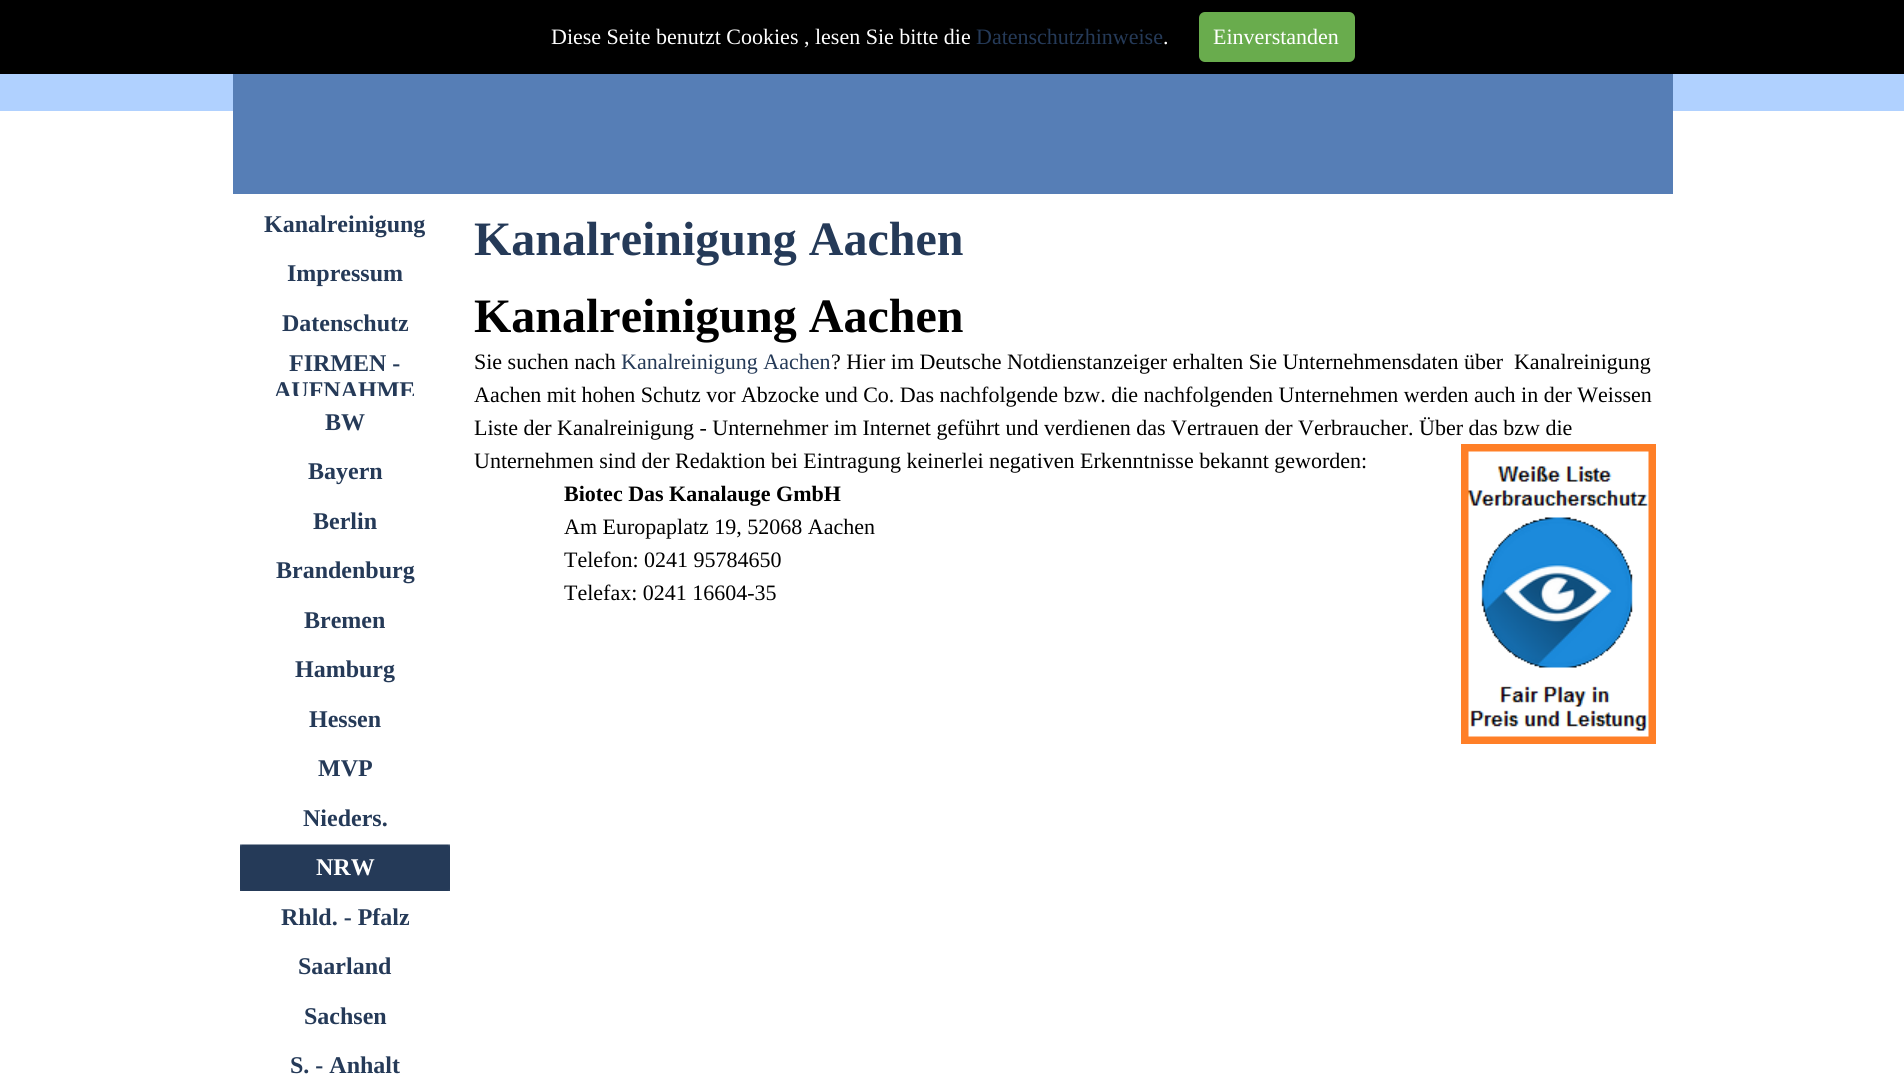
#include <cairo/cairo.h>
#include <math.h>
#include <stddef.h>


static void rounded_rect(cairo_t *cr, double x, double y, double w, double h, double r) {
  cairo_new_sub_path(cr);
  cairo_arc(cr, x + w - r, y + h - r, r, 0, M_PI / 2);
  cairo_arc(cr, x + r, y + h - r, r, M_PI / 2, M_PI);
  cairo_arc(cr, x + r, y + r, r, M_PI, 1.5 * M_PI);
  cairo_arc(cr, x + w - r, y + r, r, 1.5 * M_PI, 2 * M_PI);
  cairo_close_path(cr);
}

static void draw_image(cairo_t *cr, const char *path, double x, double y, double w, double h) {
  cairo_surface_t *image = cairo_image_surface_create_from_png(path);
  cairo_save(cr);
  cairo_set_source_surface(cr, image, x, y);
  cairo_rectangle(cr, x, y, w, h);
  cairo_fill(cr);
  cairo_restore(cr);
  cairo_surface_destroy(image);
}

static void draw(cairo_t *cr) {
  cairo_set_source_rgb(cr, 1, 1, 1);
  cairo_paint(cr);
  cairo_set_source_rgb(cr, 0, 0, 0);
  cairo_rectangle(cr, 0, 0, 1904, 74);
  cairo_fill(cr);
  cairo_set_source_rgb(cr, 105 / 255.0, 172 / 255.0, 77 / 255.0);
  rounded_rect(cr, 1199, 12, 156, 50, 6);
  cairo_fill(cr);
  cairo_set_source_rgb(cr, 176 / 255.0, 209 / 255.0, 1);
  cairo_rectangle(cr, 0, 74, 1904, 37);
  cairo_fill(cr);
  cairo_set_source_rgb(cr, 86 / 255.0, 126 / 255.0, 182 / 255.0);
  cairo_rectangle(cr, 233, 74, 1440, 120);
  cairo_fill(cr);
  draw_image(cr, "images/1.png", 240, 844, 210, 47);
  draw_image(cr, "images/2.png", 1461, 444, 195, 300);
  cairo_select_font_face(cr, "Liberation Serif", CAIRO_FONT_SLANT_NORMAL, CAIRO_FONT_WEIGHT_NORMAL);
  cairo_set_font_size(cr, 22);
  cairo_set_source_rgb(cr, 1, 1, 1);
  cairo_move_to(cr, 551, 44);
  cairo_show_text(cr, "Diese Seite benutzt Cookies , lesen Sie bitte die");
  cairo_set_source_rgb(cr, 37 / 255.0, 58 / 255.0, 88 / 255.0);
  cairo_move_to(cr, 976, 44);
  cairo_show_text(cr, "Datenschutzhinweise");
  cairo_set_source_rgb(cr, 1, 1, 1);
  cairo_move_to(cr, 1163, 44);
  cairo_show_text(cr, ".");
  cairo_move_to(cr, 1213, 44);
  cairo_show_text(cr, "Einverstanden");
  cairo_select_font_face(cr, "Liberation Serif", CAIRO_FONT_SLANT_NORMAL, CAIRO_FONT_WEIGHT_BOLD);
  cairo_set_font_size(cr, 24);
  cairo_set_source_rgb(cr, 37 / 255.0, 58 / 255.0, 88 / 255.0);
  cairo_move_to(cr, 264, 232);
  cairo_show_text(cr, "Kanalreinigung");
  cairo_move_to(cr, 287, 281);
  cairo_show_text(cr, "Impressum");
  cairo_move_to(cr, 282, 331);
  cairo_show_text(cr, "Datenschutz");
  cairo_move_to(cr, 289, 371);
  cairo_show_text(cr, "FIRMEN -");
  cairo_save(cr);
  cairo_rectangle(cr, 240, 350, 210, 46);
  cairo_clip(cr);
  cairo_move_to(cr, 274, 398);
  cairo_show_text(cr, "AUFNAHME");
  cairo_restore(cr);
  cairo_move_to(cr, 325, 430);
  cairo_show_text(cr, "BW");
  cairo_move_to(cr, 308, 479);
  cairo_show_text(cr, "Bayern");
  cairo_move_to(cr, 313, 529);
  cairo_show_text(cr, "Berlin");
  cairo_move_to(cr, 276, 578);
  cairo_show_text(cr, "Brandenburg");
  cairo_move_to(cr, 304, 628);
  cairo_show_text(cr, "Bremen");
  cairo_move_to(cr, 295, 677);
  cairo_show_text(cr, "Hamburg");
  cairo_move_to(cr, 309, 727);
  cairo_show_text(cr, "Hessen");
  cairo_move_to(cr, 318, 776);
  cairo_show_text(cr, "MVP");
  cairo_move_to(cr, 303, 826);
  cairo_show_text(cr, "Nieders.");
  cairo_set_source_rgb(cr, 1, 1, 1);
  cairo_move_to(cr, 316, 875);
  cairo_show_text(cr, "NRW");
  cairo_set_source_rgb(cr, 37 / 255.0, 58 / 255.0, 88 / 255.0);
  cairo_move_to(cr, 281, 925);
  cairo_show_text(cr, "Rhld. - Pfalz");
  cairo_move_to(cr, 298, 974);
  cairo_show_text(cr, "Saarland");
  cairo_move_to(cr, 304, 1024);
  cairo_show_text(cr, "Sachsen");
  cairo_move_to(cr, 290, 1073);
  cairo_show_text(cr, "S. - Anhalt");
  cairo_set_font_size(cr, 48);
  cairo_move_to(cr, 474, 255);
  cairo_show_text(cr, "Kanalreinigung Aachen");
  cairo_set_source_rgb(cr, 0, 0, 0);
  cairo_move_to(cr, 474, 332);
  cairo_show_text(cr, "Kanalreinigung Aachen");
  cairo_select_font_face(cr, "Liberation Serif", CAIRO_FONT_SLANT_NORMAL, CAIRO_FONT_WEIGHT_NORMAL);
  cairo_set_font_size(cr, 22);
  cairo_move_to(cr, 474, 369);
  cairo_show_text(cr, "Sie suchen nach");
  cairo_set_source_rgb(cr, 37 / 255.0, 58 / 255.0, 88 / 255.0);
  cairo_move_to(cr, 621, 369);
  cairo_show_text(cr, "Kanalreinigung Aachen");
  cairo_set_source_rgb(cr, 0, 0, 0);
  cairo_move_to(cr, 831, 369);
  cairo_show_text(cr, "? Hier im Deutsche Notdienstanzeiger erhalten Sie Unternehmensdaten über  Kanalreinigung");
  cairo_move_to(cr, 474, 402);
  cairo_show_text(cr, "Aachen mit hohen Schutz vor Abzocke und Co. Das nachfolgende bzw. die nachfolgenden Unternehmen werden auch in der Weissen");
  cairo_move_to(cr, 474, 435);
  cairo_show_text(cr, "Liste der Kanalreinigung - Unternehmer im Internet geführt und verdienen das Vertrauen der Verbraucher. Über das bzw die");
  cairo_move_to(cr, 474, 468);
  cairo_show_text(cr, "Unternehmen sind der Redaktion bei Eintragung keinerlei negativen Erkenntnisse bekannt geworden:");
  cairo_select_font_face(cr, "Liberation Serif", CAIRO_FONT_SLANT_NORMAL, CAIRO_FONT_WEIGHT_BOLD);
  cairo_move_to(cr, 564, 501);
  cairo_show_text(cr, "Biotec Das Kanalauge GmbH");
  cairo_select_font_face(cr, "Liberation Serif", CAIRO_FONT_SLANT_NORMAL, CAIRO_FONT_WEIGHT_NORMAL);
  cairo_move_to(cr, 564, 534);
  cairo_show_text(cr, "Am Europaplatz 19, 52068 Aachen");
  cairo_move_to(cr, 564, 567);
  cairo_show_text(cr, "Telefon: 0241 95784650");
  cairo_move_to(cr, 564, 600);
  cairo_show_text(cr, "Telefax: 0241 16604-35");
}

int main(void) {
  cairo_surface_t *surface = cairo_image_surface_create(CAIRO_FORMAT_RGB24, 1904, 1081);
  cairo_t *cr = cairo_create(surface);
  cairo_font_options_t *options = cairo_font_options_create();
  cairo_font_options_set_hint_metrics(options, CAIRO_HINT_METRICS_OFF);
  cairo_font_options_set_hint_style(options, CAIRO_HINT_STYLE_NONE);
  cairo_set_font_options(cr, options);
  cairo_set_miter_limit(cr, 4);
  draw(cr);
  cairo_surface_write_to_png(surface, "out.png");
  cairo_font_options_destroy(options);
  cairo_destroy(cr);
  cairo_surface_destroy(surface);
  return 0;
}
